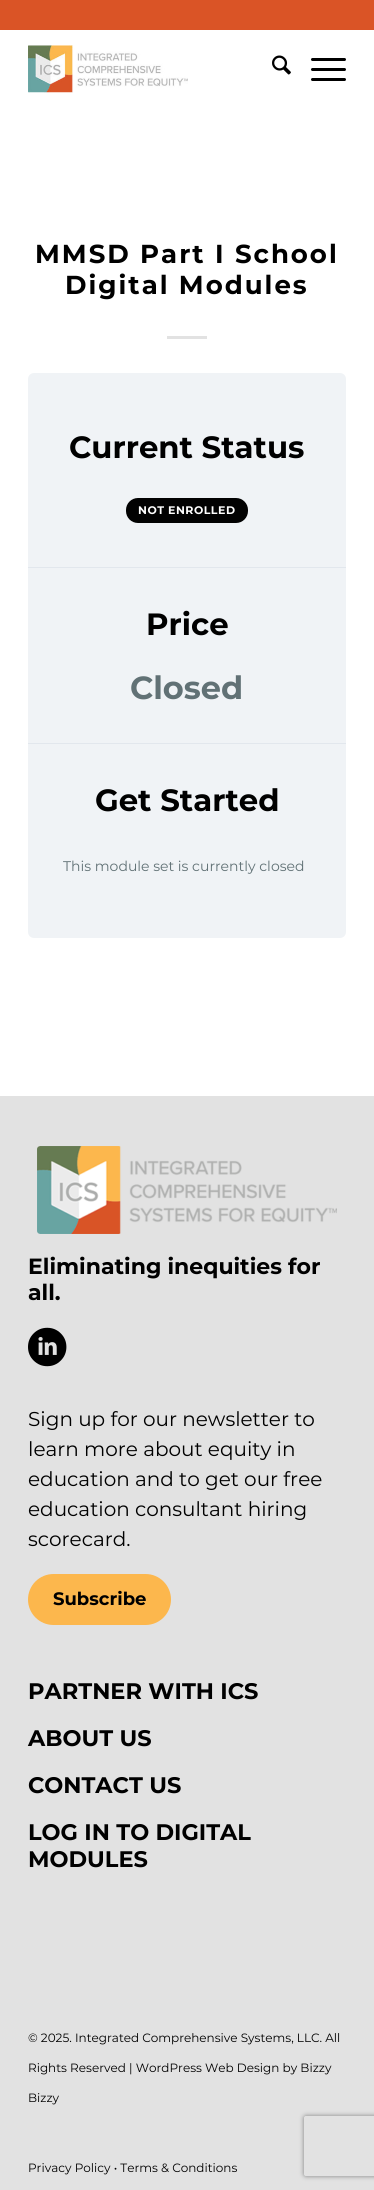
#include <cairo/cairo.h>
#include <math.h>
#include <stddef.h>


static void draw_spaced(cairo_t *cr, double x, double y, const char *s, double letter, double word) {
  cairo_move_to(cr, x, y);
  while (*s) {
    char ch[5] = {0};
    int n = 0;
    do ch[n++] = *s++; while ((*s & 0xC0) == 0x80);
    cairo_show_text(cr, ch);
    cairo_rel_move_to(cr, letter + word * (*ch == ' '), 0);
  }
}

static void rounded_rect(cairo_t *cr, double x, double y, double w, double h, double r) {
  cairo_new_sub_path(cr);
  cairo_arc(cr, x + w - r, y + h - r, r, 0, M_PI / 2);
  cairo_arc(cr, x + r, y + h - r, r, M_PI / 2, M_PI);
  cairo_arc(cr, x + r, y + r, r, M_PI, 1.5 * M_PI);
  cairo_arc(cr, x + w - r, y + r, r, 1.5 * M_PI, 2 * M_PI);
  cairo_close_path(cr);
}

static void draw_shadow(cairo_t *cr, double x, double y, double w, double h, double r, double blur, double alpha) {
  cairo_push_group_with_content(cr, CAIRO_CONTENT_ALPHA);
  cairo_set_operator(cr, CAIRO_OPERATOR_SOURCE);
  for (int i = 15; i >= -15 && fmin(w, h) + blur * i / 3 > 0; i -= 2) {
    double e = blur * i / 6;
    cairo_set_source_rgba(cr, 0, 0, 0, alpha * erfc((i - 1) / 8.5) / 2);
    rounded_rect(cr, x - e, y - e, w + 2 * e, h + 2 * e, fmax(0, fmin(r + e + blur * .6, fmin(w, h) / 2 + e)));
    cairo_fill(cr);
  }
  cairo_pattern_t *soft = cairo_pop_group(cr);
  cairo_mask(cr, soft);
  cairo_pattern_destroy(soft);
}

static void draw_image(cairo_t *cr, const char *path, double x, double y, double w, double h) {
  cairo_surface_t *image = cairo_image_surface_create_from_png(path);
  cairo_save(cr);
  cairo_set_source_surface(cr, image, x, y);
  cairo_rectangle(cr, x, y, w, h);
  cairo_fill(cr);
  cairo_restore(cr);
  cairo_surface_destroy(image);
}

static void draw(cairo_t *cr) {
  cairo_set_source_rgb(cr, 1, 1, 1);
  cairo_paint(cr);
  cairo_set_source_rgb(cr, 218 / 255.0, 84 / 255.0, 38 / 255.0);
  cairo_rectangle(cr, 0, 0, 374, 30);
  cairo_fill(cr);
  draw_image(cr, "images/1.png", 28, 45, 160, 48);
  draw_image(cr, "images/2.png", 272, 55, 19, 20);
  cairo_set_source_rgb(cr, 0, 0, 0);
  rounded_rect(cr, 311, 68, 35, 3, 1.5);
  cairo_fill(cr);
  rounded_rect(cr, 311, 58, 35, 3, 1.5);
  cairo_fill(cr);
  rounded_rect(cr, 311, 78, 35, 3, 1.5);
  cairo_fill(cr);
  cairo_set_source_rgb(cr, 226 / 255.0, 226 / 255.0, 226 / 255.0);
  cairo_rectangle(cr, 167, 336, 40, 3);
  cairo_fill(cr);
  cairo_set_source_rgb(cr, 240 / 255.0, 243 / 255.0, 246 / 255.0);
  rounded_rect(cr, 28, 373, 318, 565, 6);
  cairo_fill(cr);
  cairo_set_source_rgb(cr, 226 / 255.0, 231 / 255.0, 237 / 255.0);
  cairo_rectangle(cr, 28, 567, 318, 1);
  cairo_fill(cr);
  cairo_set_source_rgb(cr, 2 / 255.0, 2 / 255.0, 2 / 255.0);
  rounded_rect(cr, 126, 498, 122, 25, 12);
  cairo_fill(cr);
  cairo_set_source_rgb(cr, 226 / 255.0, 231 / 255.0, 237 / 255.0);
  cairo_rectangle(cr, 28, 743, 318, 1);
  cairo_fill(cr);
  cairo_set_source_rgb(cr, 226 / 255.0, 226 / 255.0, 226 / 255.0);
  cairo_rectangle(cr, 0, 1096, 374, 1094);
  cairo_fill(cr);
  draw_image(cr, "images/3.png", 37, 1146, 300, 88);
  draw_image(cr, "images/4.png", 28, 1327, 39, 40);
  cairo_set_source_rgb(cr, 252 / 255.0, 183 / 255.0, 77 / 255.0);
  rounded_rect(cr, 28, 1574, 143, 51, 25.5);
  cairo_fill(cr);
  cairo_save(cr);
  cairo_set_fill_rule(cr, CAIRO_FILL_RULE_EVEN_ODD);
  cairo_new_path(cr);
  cairo_move_to(cr, 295, 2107);
  cairo_line_to(cr, 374, 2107);
  cairo_line_to(cr, 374, 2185);
  cairo_line_to(cr, 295, 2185);
  cairo_close_path(cr);
  cairo_move_to(cr, 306, 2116);
  cairo_line_to(cr, 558, 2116);
  cairo_curve_to(cr, 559, 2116, 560, 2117, 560, 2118);
  cairo_line_to(cr, 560, 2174);
  cairo_curve_to(cr, 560, 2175, 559, 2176, 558, 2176);
  cairo_line_to(cr, 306, 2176);
  cairo_curve_to(cr, 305, 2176, 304, 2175, 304, 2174);
  cairo_line_to(cr, 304, 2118);
  cairo_curve_to(cr, 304, 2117, 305, 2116, 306, 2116);
  cairo_close_path(cr);
  cairo_clip(cr);
  cairo_set_source_rgb(cr, 128 / 255.0, 128 / 255.0, 128 / 255.0);
  draw_shadow(cr, 304, 2116, 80, 60, 2, 2.5, 1);
  cairo_restore(cr);
  cairo_select_font_face(cr, "Montserrat Thin", CAIRO_FONT_SLANT_NORMAL, CAIRO_FONT_WEIGHT_NORMAL);
  cairo_set_font_size(cr, 26);
  cairo_set_source_rgb(cr, 0, 0, 0);
  draw_spaced(cr, 35, 263, "MMSD Part I School", 2, 0);
  draw_spaced(cr, 65, 294, "Digital Modules", 2, 0);
  cairo_set_font_size(cr, 30.75);
  cairo_move_to(cr, 69, 458);
  cairo_show_text(cr, "Current Status");
  cairo_set_font_size(cr, 11);
  cairo_set_source_rgb(cr, 1, 1, 1);
  draw_spaced(cr, 138, 514, "NOT ENROLLED", 0.5, 0);
  cairo_set_font_size(cr, 30.75);
  cairo_set_source_rgb(cr, 0, 0, 0);
  cairo_move_to(cr, 146, 635);
  cairo_show_text(cr, "Price");
  cairo_set_font_size(cr, 32);
  cairo_set_source_rgb(cr, 97 / 255.0, 113 / 255.0, 117 / 255.0);
  cairo_move_to(cr, 130, 699);
  cairo_show_text(cr, "Closed");
  cairo_set_font_size(cr, 30.75);
  cairo_set_source_rgb(cr, 0, 0, 0);
  cairo_move_to(cr, 95, 811);
  cairo_show_text(cr, "Get Started");
  cairo_select_font_face(cr, "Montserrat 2 Thin", CAIRO_FONT_SLANT_NORMAL, CAIRO_FONT_WEIGHT_NORMAL);
  cairo_set_font_size(cr, 14);
  cairo_set_source_rgb(cr, 97 / 255.0, 113 / 255.0, 117 / 255.0);
  cairo_move_to(cr, 63, 871);
  cairo_show_text(cr, "This module set is currently closed");
  cairo_select_font_face(cr, "Montserrat Thin", CAIRO_FONT_SLANT_NORMAL, CAIRO_FONT_WEIGHT_NORMAL);
  cairo_set_font_size(cr, 22);
  cairo_set_source_rgb(cr, 0, 0, 0);
  cairo_move_to(cr, 28, 1274);
  cairo_show_text(cr, "Eliminating inequities for");
  cairo_move_to(cr, 28, 1300);
  cairo_show_text(cr, "all.");
  cairo_select_font_face(cr, "Montserrat 2 Thin", CAIRO_FONT_SLANT_NORMAL, CAIRO_FONT_WEIGHT_NORMAL);
  cairo_set_font_size(cr, 20);
  cairo_move_to(cr, 28, 1426);
  cairo_show_text(cr, "Sign up for our newsletter to");
  cairo_move_to(cr, 28, 1456);
  cairo_show_text(cr, "learn more about equity in");
  cairo_move_to(cr, 28, 1486);
  cairo_show_text(cr, "education and to get our free");
  cairo_move_to(cr, 28, 1516);
  cairo_show_text(cr, "education consultant hiring");
  cairo_move_to(cr, 28, 1546);
  cairo_show_text(cr, "scorecard.");
  cairo_select_font_face(cr, "Montserrat Thin", CAIRO_FONT_SLANT_NORMAL, CAIRO_FONT_WEIGHT_NORMAL);
  cairo_set_font_size(cr, 18);
  cairo_move_to(cr, 53, 1605);
  cairo_show_text(cr, "Subscribe");
  cairo_set_font_size(cr, 22.5);
  cairo_move_to(cr, 28, 1699);
  cairo_show_text(cr, "PARTNER WITH ICS");
  cairo_move_to(cr, 28, 1746);
  cairo_show_text(cr, "ABOUT US");
  cairo_move_to(cr, 28, 1793);
  cairo_show_text(cr, "CONTACT US");
  cairo_move_to(cr, 28, 1840);
  cairo_show_text(cr, "LOG IN TO DIGITAL");
  cairo_move_to(cr, 28, 1867);
  cairo_show_text(cr, "MODULES");
  cairo_select_font_face(cr, "Montserrat 2 Thin", CAIRO_FONT_SLANT_NORMAL, CAIRO_FONT_WEIGHT_NORMAL);
  cairo_set_font_size(cr, 12);
  cairo_move_to(cr, 28, 2042);
  cairo_show_text(cr, "© 2025. Integrated Comprehensive Systems, LLC. All");
  cairo_move_to(cr, 28, 2072);
  cairo_show_text(cr, "Rights Reserved | WordPress Web Design by Bizzy");
  cairo_move_to(cr, 28, 2102);
  cairo_show_text(cr, "Bizzy");
  cairo_move_to(cr, 28, 2172);
  cairo_show_text(cr, "Privacy Policy • Terms & Conditions");
}

int main(void) {
  cairo_surface_t *surface = cairo_image_surface_create(CAIRO_FORMAT_RGB24, 374, 2190);
  cairo_t *cr = cairo_create(surface);
  cairo_font_options_t *options = cairo_font_options_create();
  cairo_font_options_set_hint_metrics(options, CAIRO_HINT_METRICS_OFF);
  cairo_font_options_set_hint_style(options, CAIRO_HINT_STYLE_NONE);
  cairo_set_font_options(cr, options);
  cairo_set_miter_limit(cr, 4);
  draw(cr);
  cairo_surface_write_to_png(surface, "out.png");
  cairo_font_options_destroy(options);
  cairo_destroy(cr);
  cairo_surface_destroy(surface);
  return 0;
}
